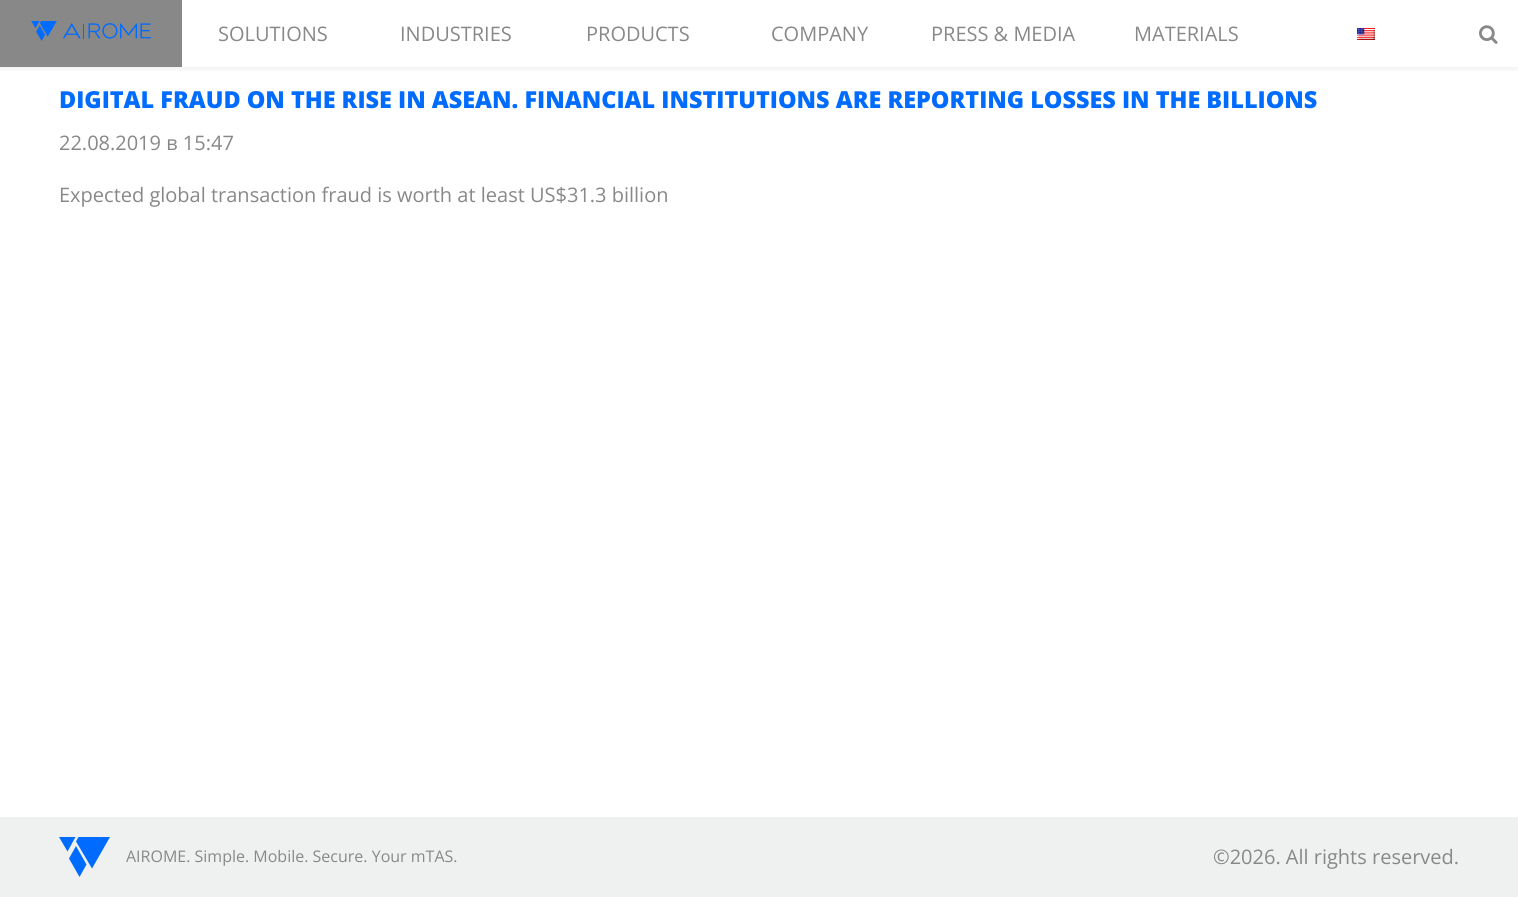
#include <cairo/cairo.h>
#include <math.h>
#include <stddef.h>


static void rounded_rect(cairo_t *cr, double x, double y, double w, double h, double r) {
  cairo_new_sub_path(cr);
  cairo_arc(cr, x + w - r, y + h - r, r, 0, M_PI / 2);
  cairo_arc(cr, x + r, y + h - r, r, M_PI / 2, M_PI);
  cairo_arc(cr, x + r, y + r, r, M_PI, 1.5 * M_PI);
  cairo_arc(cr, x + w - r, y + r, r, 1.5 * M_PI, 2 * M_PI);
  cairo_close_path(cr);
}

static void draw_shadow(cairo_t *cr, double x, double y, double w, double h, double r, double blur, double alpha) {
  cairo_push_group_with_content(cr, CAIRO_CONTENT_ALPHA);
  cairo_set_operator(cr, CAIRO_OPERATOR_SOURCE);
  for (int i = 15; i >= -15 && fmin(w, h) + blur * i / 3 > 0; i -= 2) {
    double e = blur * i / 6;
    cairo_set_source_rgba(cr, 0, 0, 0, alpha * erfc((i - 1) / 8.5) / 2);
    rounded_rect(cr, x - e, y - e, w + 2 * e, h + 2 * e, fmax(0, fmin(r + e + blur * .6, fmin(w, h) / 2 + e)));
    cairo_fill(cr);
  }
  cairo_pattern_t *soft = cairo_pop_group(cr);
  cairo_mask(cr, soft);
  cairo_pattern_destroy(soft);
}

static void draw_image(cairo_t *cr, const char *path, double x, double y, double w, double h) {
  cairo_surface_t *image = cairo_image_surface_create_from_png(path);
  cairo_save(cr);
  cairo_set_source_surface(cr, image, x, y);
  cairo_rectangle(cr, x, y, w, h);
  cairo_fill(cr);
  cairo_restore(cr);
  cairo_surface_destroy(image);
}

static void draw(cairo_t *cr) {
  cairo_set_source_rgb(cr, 1, 1, 1);
  cairo_paint(cr);
  cairo_save(cr);
  cairo_rectangle(cr, 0, 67, 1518, 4);
  cairo_clip(cr);
  cairo_set_source_rgb(cr, 0, 0, 0);
  draw_shadow(cr, 0, 0, 1518, 67, 0, 5, 0.1);
  cairo_restore(cr);
  cairo_set_source_rgb(cr, 136 / 255.0, 136 / 255.0, 136 / 255.0);
  cairo_rectangle(cr, 0, 0, 182, 67);
  cairo_fill(cr);
  draw_image(cr, "images/1.png", 31, 21, 120, 20);
  draw_image(cr, "images/2.png", 1357, 28, 18, 12);
  draw_image(cr, "images/3.png", 1479, 25, 19, 19);
  cairo_set_source_rgb(cr, 239 / 255.0, 241 / 255.0, 241 / 255.0);
  cairo_rectangle(cr, 0, 817, 1518, 80);
  cairo_fill(cr);
  cairo_set_source_rgb(cr, 0, 107 / 255.0, 1);
  cairo_new_path(cr);
  cairo_move_to(cr, 59, 837);
  cairo_line_to(cr, 67.5, 851.5);
  cairo_line_to(cr, 75.5, 837);
  cairo_close_path(cr);
  cairo_move_to(cr, 78.5, 837);
  cairo_line_to(cr, 76, 841.5);
  cairo_line_to(cr, 92, 868.5);
  cairo_line_to(cr, 110, 837);
  cairo_close_path(cr);
  cairo_fill(cr);
  cairo_new_path(cr);
  cairo_move_to(cr, 69, 858.5);
  cairo_line_to(cr, 79.5, 877);
  cairo_line_to(cr, 86.5, 864.5);
  cairo_line_to(cr, 76, 846);
  cairo_close_path(cr);
  cairo_fill(cr);
  cairo_select_font_face(cr, "Open Sans", CAIRO_FONT_SLANT_NORMAL, CAIRO_FONT_WEIGHT_NORMAL);
  cairo_set_font_size(cr, 20);
  cairo_set_source_rgb(cr, 136 / 255.0, 136 / 255.0, 136 / 255.0);
  cairo_move_to(cr, 218, 41);
  cairo_show_text(cr, "SOLUTIONS");
  cairo_move_to(cr, 400, 41);
  cairo_show_text(cr, "INDUSTRIES");
  cairo_move_to(cr, 586, 41);
  cairo_show_text(cr, "PRODUCTS");
  cairo_move_to(cr, 771, 41);
  cairo_show_text(cr, "COMPANY");
  cairo_move_to(cr, 931, 41);
  cairo_show_text(cr, "PRESS & MEDIA");
  cairo_move_to(cr, 1134, 41);
  cairo_show_text(cr, "MATERIALS");
  cairo_select_font_face(cr, "Open Sans ExtraBold", CAIRO_FONT_SLANT_NORMAL, CAIRO_FONT_WEIGHT_NORMAL);
  cairo_set_font_size(cr, 23.4);
  cairo_set_source_rgb(cr, 0, 107 / 255.0, 1);
  cairo_move_to(cr, 59, 108);
  cairo_show_text(cr, "DIGITAL FRAUD ON THE RISE IN ASEAN. FINANCIAL INSTITUTIONS ARE REPORTING LOSSES IN THE BILLIONS");
  cairo_select_font_face(cr, "Open Sans", CAIRO_FONT_SLANT_NORMAL, CAIRO_FONT_WEIGHT_NORMAL);
  cairo_set_font_size(cr, 20);
  cairo_set_source_rgb(cr, 136 / 255.0, 136 / 255.0, 136 / 255.0);
  cairo_move_to(cr, 59, 150);
  cairo_show_text(cr, "22.08.2019 в 15:47");
  cairo_move_to(cr, 59, 202);
  cairo_show_text(cr, "Expected global transaction fraud is worth at least US$31.3 billion");
  cairo_set_font_size(cr, 16);
  cairo_move_to(cr, 126, 862);
  cairo_show_text(cr, "AIROME. Simple. Mobile. Secure. Your mTAS.");
  cairo_set_font_size(cr, 20);
  cairo_move_to(cr, 1213, 864);
  cairo_show_text(cr, "©2026. All rights reserved.");
}

int main(void) {
  cairo_surface_t *surface = cairo_image_surface_create(CAIRO_FORMAT_RGB24, 1518, 897);
  cairo_t *cr = cairo_create(surface);
  cairo_font_options_t *options = cairo_font_options_create();
  cairo_font_options_set_hint_metrics(options, CAIRO_HINT_METRICS_OFF);
  cairo_font_options_set_hint_style(options, CAIRO_HINT_STYLE_NONE);
  cairo_set_font_options(cr, options);
  cairo_set_miter_limit(cr, 4);
  draw(cr);
  cairo_surface_write_to_png(surface, "out.png");
  cairo_font_options_destroy(options);
  cairo_destroy(cr);
  cairo_surface_destroy(surface);
  return 0;
}
